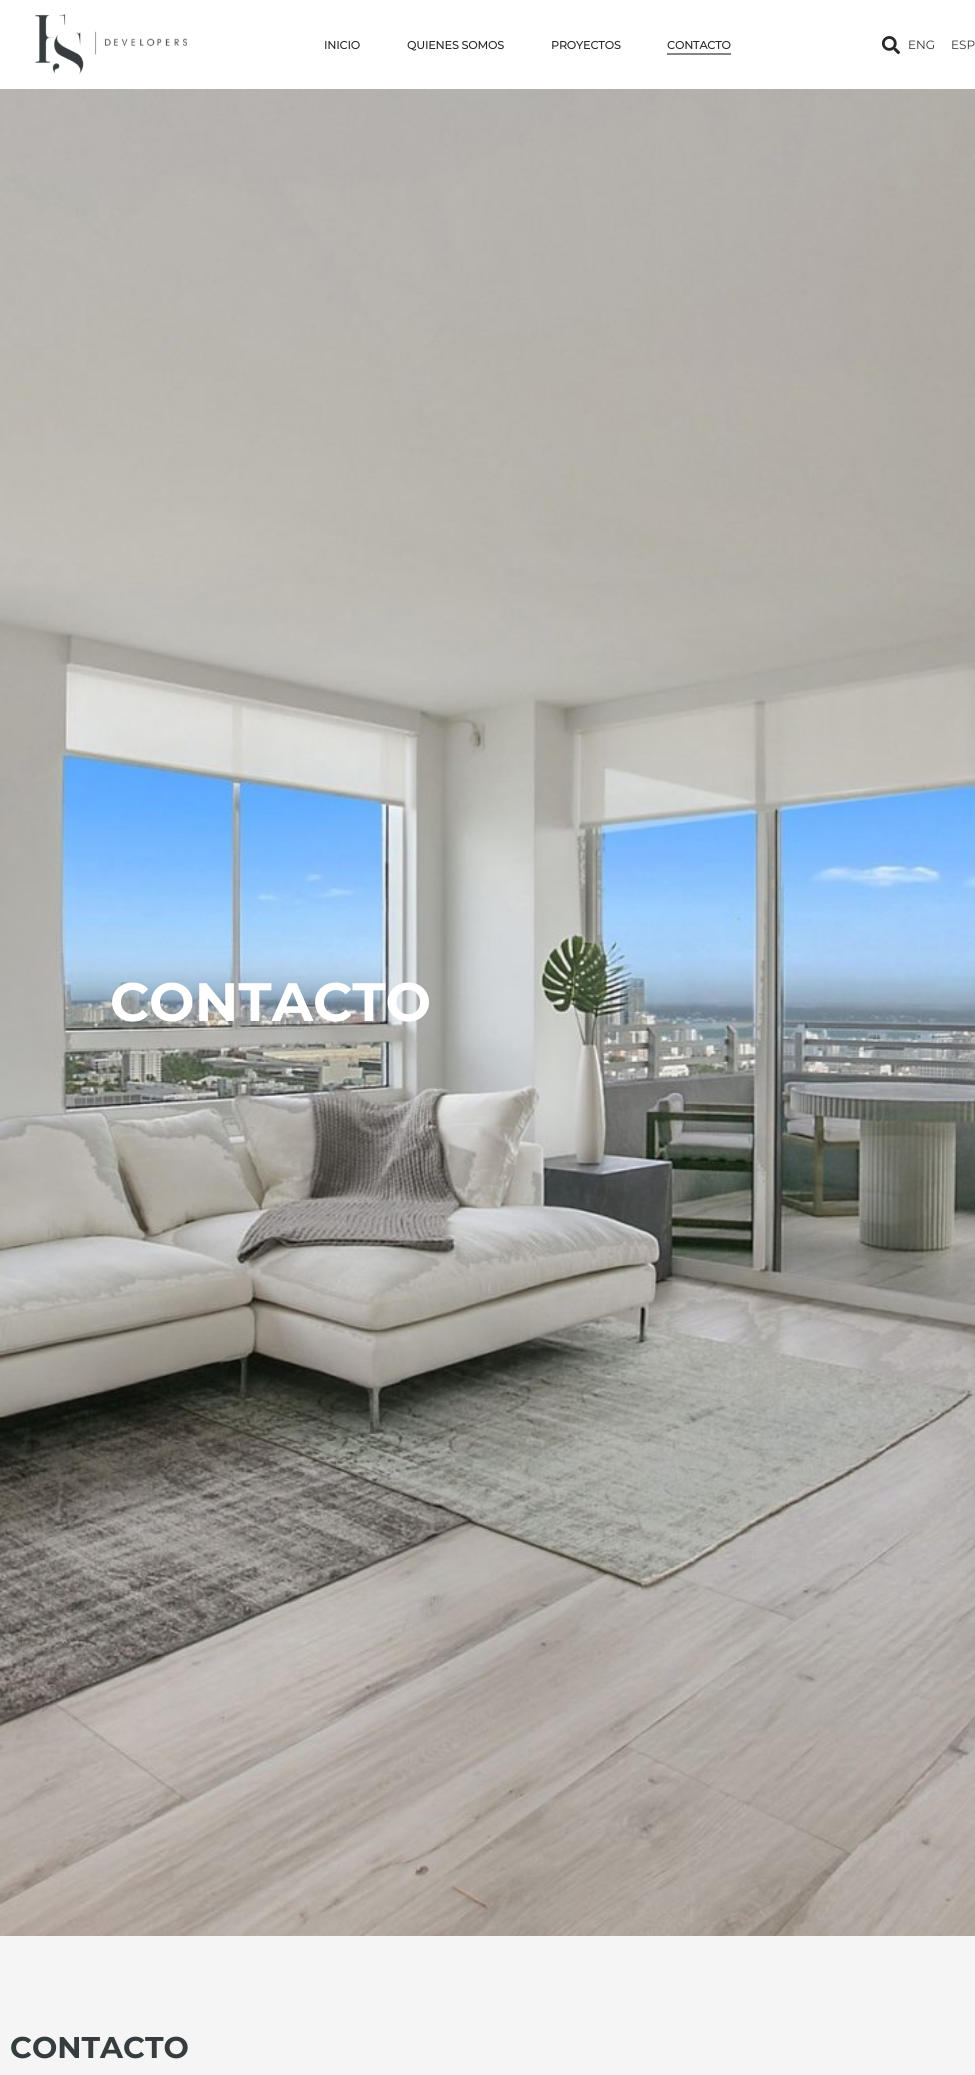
#include <cairo/cairo.h>
#include <math.h>
#include <stddef.h>


static void draw_image(cairo_t *cr, const char *path, double x, double y, double w, double h) {
  cairo_surface_t *image = cairo_image_surface_create_from_png(path);
  cairo_save(cr);
  cairo_set_source_surface(cr, image, x, y);
  cairo_rectangle(cr, x, y, w, h);
  cairo_fill(cr);
  cairo_restore(cr);
  cairo_surface_destroy(image);
}

static void draw(cairo_t *cr) {
  cairo_set_source_rgb(cr, 1, 1, 1);
  cairo_paint(cr);
  draw_image(cr, "images/1.png", 35, 14, 152, 60);
  cairo_set_source_rgb(cr, 134 / 255.0, 134 / 255.0, 134 / 255.0);
  cairo_rectangle(cr, 667, 53, 64, 2);
  cairo_fill(cr);
  draw_image(cr, "images/2.png", 881, 36, 19, 19);
  draw_image(cr, "images/3.png", 0, 89, 975, 1847);
  cairo_set_source_rgb(cr, 245 / 255.0, 245 / 255.0, 245 / 255.0);
  cairo_rectangle(cr, 0, 1936, 975, 139);
  cairo_fill(cr);
  cairo_select_font_face(cr, "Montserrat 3", CAIRO_FONT_SLANT_NORMAL, CAIRO_FONT_WEIGHT_BOLD);
  cairo_set_font_size(cr, 11);
  cairo_set_source_rgb(cr, 41 / 255.0, 39 / 255.0, 40 / 255.0);
  cairo_move_to(cr, 324, 49);
  cairo_show_text(cr, "INICIO");
  cairo_move_to(cr, 407, 49);
  cairo_show_text(cr, "QUIENES SOMOS");
  cairo_move_to(cr, 551, 49);
  cairo_show_text(cr, "PROYECTOS");
  cairo_move_to(cr, 667, 49);
  cairo_show_text(cr, "CONTACTO");
  cairo_select_font_face(cr, "Montserrat", CAIRO_FONT_SLANT_NORMAL, CAIRO_FONT_WEIGHT_NORMAL);
  cairo_set_font_size(cr, 12);
  cairo_set_source_rgb(cr, 51 / 255.0, 49 / 255.0, 51 / 255.0);
  cairo_move_to(cr, 908, 49);
  cairo_show_text(cr, "ENG");
  cairo_move_to(cr, 951, 49);
  cairo_show_text(cr, "ESP");
  cairo_select_font_face(cr, "Montserrat", CAIRO_FONT_SLANT_NORMAL, CAIRO_FONT_WEIGHT_BOLD);
  cairo_set_font_size(cr, 54);
  cairo_set_source_rgb(cr, 1, 1, 1);
  cairo_move_to(cr, 110, 1021);
  cairo_show_text(cr, "CONTACTO");
  cairo_select_font_face(cr, "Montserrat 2", CAIRO_FONT_SLANT_NORMAL, CAIRO_FONT_WEIGHT_BOLD);
  cairo_set_font_size(cr, 30);
  cairo_set_source_rgb(cr, 54 / 255.0, 61 / 255.0, 63 / 255.0);
  cairo_move_to(cr, 10, 2058);
  cairo_show_text(cr, "CONTACTO");
}

int main(void) {
  cairo_surface_t *surface = cairo_image_surface_create(CAIRO_FORMAT_RGB24, 975, 2075);
  cairo_t *cr = cairo_create(surface);
  cairo_font_options_t *options = cairo_font_options_create();
  cairo_font_options_set_hint_metrics(options, CAIRO_HINT_METRICS_OFF);
  cairo_font_options_set_hint_style(options, CAIRO_HINT_STYLE_NONE);
  cairo_set_font_options(cr, options);
  cairo_set_miter_limit(cr, 4);
  draw(cr);
  cairo_surface_write_to_png(surface, "out.png");
  cairo_font_options_destroy(options);
  cairo_destroy(cr);
  cairo_surface_destroy(surface);
  return 0;
}
